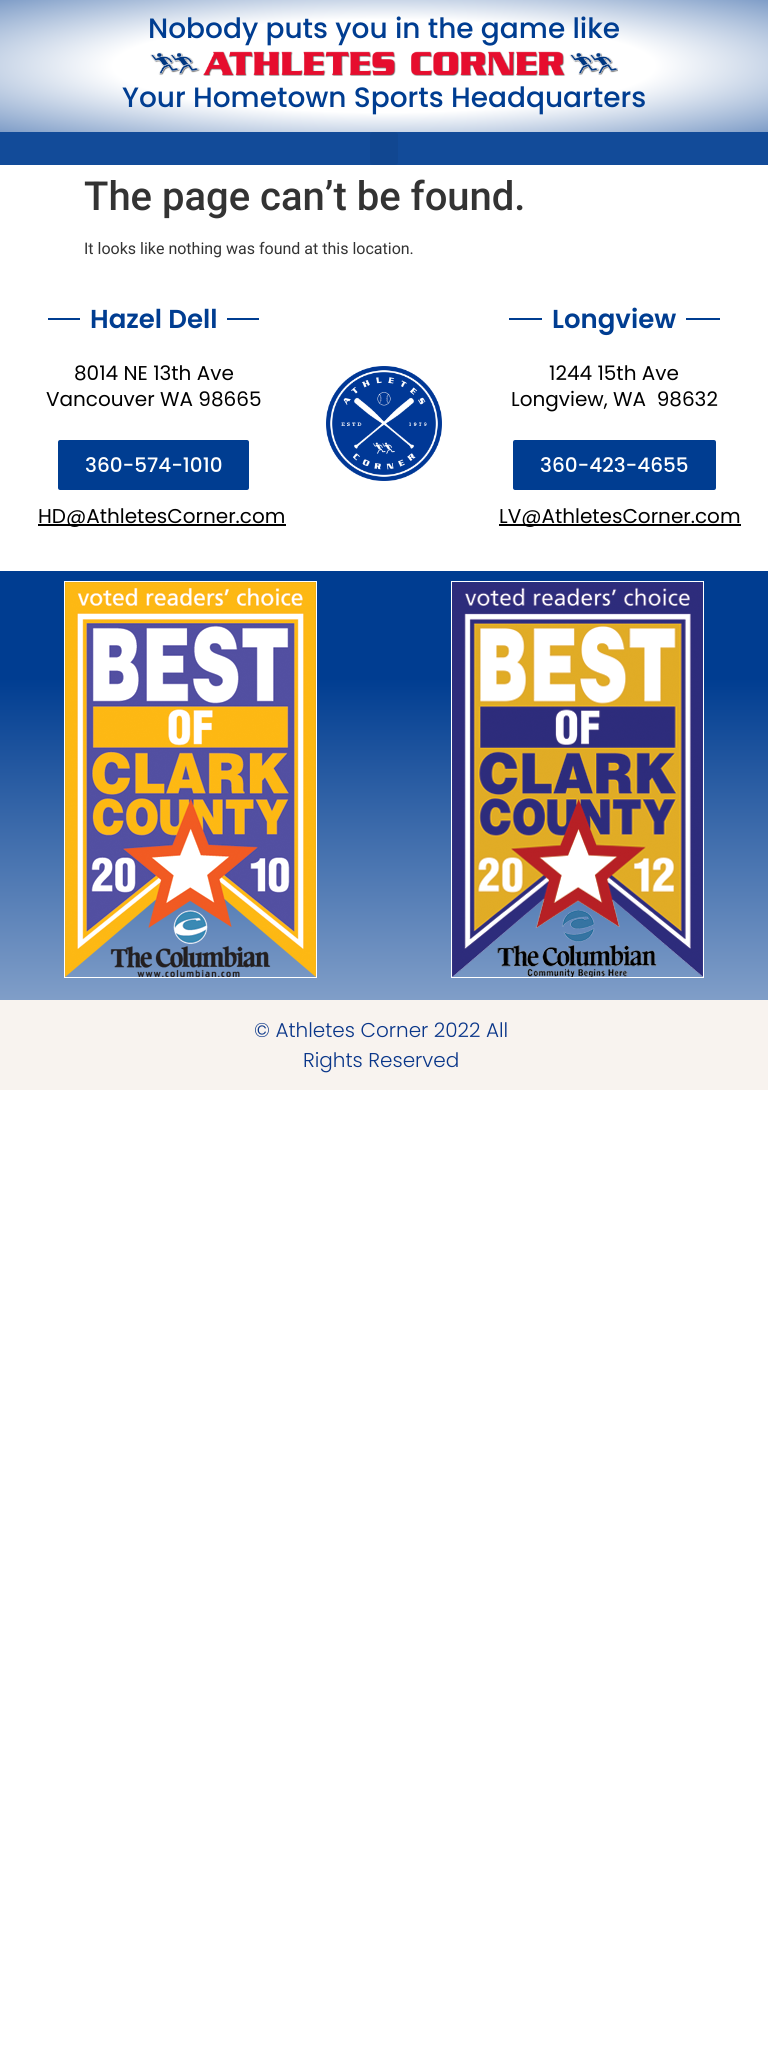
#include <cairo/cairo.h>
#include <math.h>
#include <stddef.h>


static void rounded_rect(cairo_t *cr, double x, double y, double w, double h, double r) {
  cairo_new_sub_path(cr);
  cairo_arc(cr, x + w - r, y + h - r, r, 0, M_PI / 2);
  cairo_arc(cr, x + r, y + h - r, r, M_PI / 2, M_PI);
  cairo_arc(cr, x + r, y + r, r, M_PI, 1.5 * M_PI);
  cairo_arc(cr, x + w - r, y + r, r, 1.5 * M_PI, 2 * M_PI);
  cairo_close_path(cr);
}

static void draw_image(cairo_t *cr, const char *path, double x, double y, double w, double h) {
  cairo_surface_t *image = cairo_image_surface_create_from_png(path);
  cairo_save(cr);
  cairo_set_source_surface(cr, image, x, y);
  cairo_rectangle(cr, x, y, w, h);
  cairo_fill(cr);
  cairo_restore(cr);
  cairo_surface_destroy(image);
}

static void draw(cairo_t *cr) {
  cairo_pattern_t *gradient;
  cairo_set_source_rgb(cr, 1, 1, 1);
  cairo_paint(cr);
  gradient = cairo_pattern_create_radial(0, 0, 0, 0, 0, 1);
  cairo_pattern_set_matrix(gradient, &(cairo_matrix_t){1.0 / 543, 0, 0, 1.0 / 93, -1.0 * 384 / 543, -1.0 * 66 / 93});
  cairo_pattern_add_color_stop_rgba(gradient, 0.5, 1, 1, 1, 1);
  cairo_pattern_add_color_stop_rgba(gradient, 1, 128 / 255.0, 158 / 255.0, 200 / 255.0, 1);
  cairo_set_source(cr, gradient);
  cairo_pattern_destroy(gradient);
  cairo_rectangle(cr, 0, 0, 768, 132);
  cairo_fill(cr);
  draw_image(cr, "images/1.png", 150, 51, 468, 25);
  cairo_set_source_rgb(cr, 18 / 255.0, 75 / 255.0, 153 / 255.0);
  cairo_rectangle(cr, 0, 132, 768, 33);
  cairo_fill(cr);
  cairo_set_source_rgb(cr, 17 / 255.0, 71 / 255.0, 145 / 255.0);
  rounded_rect(cr, 370, 132, 28, 33, 3);
  cairo_fill(cr);
  cairo_set_source_rgb(cr, 0, 61 / 255.0, 145 / 255.0);
  cairo_rectangle(cr, 48, 318, 32, 2);
  cairo_fill(cr);
  cairo_rectangle(cr, 227, 318, 32, 2);
  cairo_fill(cr);
  rounded_rect(cr, 59.5, 441.5, 188, 47, 0.5);
  cairo_fill_preserve(cr);
  cairo_set_line_width(cr, 3);
  cairo_stroke(cr);
  cairo_set_source_rgb(cr, 0, 0, 0);
  cairo_rectangle(cr, 38, 524, 248, 2);
  cairo_fill(cr);
  draw_image(cr, "images/2.png", 326, 366, 116, 115);
  cairo_set_source_rgb(cr, 0, 61 / 255.0, 145 / 255.0);
  cairo_rectangle(cr, 509, 318, 33, 2);
  cairo_fill(cr);
  cairo_rectangle(cr, 686, 318, 34, 2);
  cairo_fill(cr);
  rounded_rect(cr, 514.5, 441.5, 200, 47, 0.5);
  cairo_fill_preserve(cr);
  cairo_stroke(cr);
  cairo_set_source_rgb(cr, 0, 0, 0);
  cairo_rectangle(cr, 499, 524, 242, 2);
  cairo_fill(cr);
  gradient = cairo_pattern_create_linear(384, 571, 384, 1000);
  cairo_pattern_add_color_stop_rgba(gradient, 0.25, 0, 61 / 255.0, 145 / 255.0, 1);
  cairo_pattern_add_color_stop_rgba(gradient, 1, 128 / 255.0, 158 / 255.0, 200 / 255.0, 1);
  cairo_set_source(cr, gradient);
  cairo_pattern_destroy(gradient);
  cairo_rectangle(cr, 0, 571, 768, 429);
  cairo_fill(cr);
  cairo_rectangle(cr, 64.5, 581.5, 252, 396);
  cairo_set_source_rgb(cr, 1, 1, 1);
  cairo_set_line_width(cr, 1);
  cairo_stroke(cr);
  draw_image(cr, "images/3.png", 65, 582, 251, 395);
  cairo_rectangle(cr, 451.5, 581.5, 252, 396);
  cairo_stroke(cr);
  draw_image(cr, "images/4.png", 452, 582, 251, 395);
  cairo_set_source_rgb(cr, 248 / 255.0, 243 / 255.0, 239 / 255.0);
  cairo_rectangle(cr, 0, 1000, 768, 90);
  cairo_fill(cr);
  cairo_select_font_face(cr, "Poppins Medium", CAIRO_FONT_SLANT_NORMAL, CAIRO_FONT_WEIGHT_NORMAL);
  cairo_set_font_size(cr, 28);
  cairo_set_source_rgb(cr, 0, 61 / 255.0, 145 / 255.0);
  cairo_move_to(cr, 148, 38);
  cairo_show_text(cr, "Nobody puts you in the game like");
  cairo_move_to(cr, 122, 107);
  cairo_show_text(cr, "Your Hometown Sports Headquarters");
  cairo_select_font_face(cr, "Roboto Medium", CAIRO_FONT_SLANT_NORMAL, CAIRO_FONT_WEIGHT_NORMAL);
  cairo_set_font_size(cr, 40);
  cairo_set_source_rgb(cr, 51 / 255.0, 51 / 255.0, 51 / 255.0);
  cairo_move_to(cr, 84, 210);
  cairo_show_text(cr, "The page can’t be found.");
  cairo_select_font_face(cr, "Roboto", CAIRO_FONT_SLANT_NORMAL, CAIRO_FONT_WEIGHT_NORMAL);
  cairo_set_font_size(cr, 16);
  cairo_move_to(cr, 84, 254);
  cairo_show_text(cr, "It looks like nothing was found at this location.");
  cairo_select_font_face(cr, "Poppins SemiBold", CAIRO_FONT_SLANT_NORMAL, CAIRO_FONT_WEIGHT_NORMAL);
  cairo_set_font_size(cr, 26);
  cairo_set_source_rgb(cr, 0, 61 / 255.0, 145 / 255.0);
  cairo_move_to(cr, 90, 328);
  cairo_show_text(cr, "Hazel Dell");
  cairo_select_font_face(cr, "Poppins", CAIRO_FONT_SLANT_NORMAL, CAIRO_FONT_WEIGHT_NORMAL);
  cairo_set_font_size(cr, 20);
  cairo_set_source_rgb(cr, 0, 0, 0);
  cairo_move_to(cr, 74, 380);
  cairo_show_text(cr, "8014 NE 13th Ave");
  cairo_move_to(cr, 46, 406);
  cairo_show_text(cr, "Vancouver WA 98665");
  cairo_select_font_face(cr, "Poppins Medium", CAIRO_FONT_SLANT_NORMAL, CAIRO_FONT_WEIGHT_NORMAL);
  cairo_set_source_rgb(cr, 1, 1, 1);
  cairo_move_to(cr, 85, 472);
  cairo_show_text(cr, "360-574-1010");
  cairo_select_font_face(cr, "Poppins", CAIRO_FONT_SLANT_NORMAL, CAIRO_FONT_WEIGHT_NORMAL);
  cairo_set_source_rgb(cr, 0, 0, 0);
  cairo_move_to(cr, 38, 523);
  cairo_show_text(cr, "HD@AthletesCorner.com");
  cairo_select_font_face(cr, "Poppins SemiBold", CAIRO_FONT_SLANT_NORMAL, CAIRO_FONT_WEIGHT_NORMAL);
  cairo_set_font_size(cr, 26);
  cairo_set_source_rgb(cr, 0, 61 / 255.0, 145 / 255.0);
  cairo_move_to(cr, 552, 328);
  cairo_show_text(cr, "Longview");
  cairo_select_font_face(cr, "Poppins", CAIRO_FONT_SLANT_NORMAL, CAIRO_FONT_WEIGHT_NORMAL);
  cairo_set_font_size(cr, 20);
  cairo_set_source_rgb(cr, 0, 0, 0);
  cairo_move_to(cr, 549, 380);
  cairo_show_text(cr, "1244 15th Ave");
  cairo_move_to(cr, 511, 406);
  cairo_show_text(cr, "Longview, WA  98632");
  cairo_select_font_face(cr, "Poppins Medium", CAIRO_FONT_SLANT_NORMAL, CAIRO_FONT_WEIGHT_NORMAL);
  cairo_set_source_rgb(cr, 1, 1, 1);
  cairo_move_to(cr, 540, 472);
  cairo_show_text(cr, "360-423-4655");
  cairo_select_font_face(cr, "Poppins", CAIRO_FONT_SLANT_NORMAL, CAIRO_FONT_WEIGHT_NORMAL);
  cairo_set_source_rgb(cr, 0, 0, 0);
  cairo_move_to(cr, 499, 523);
  cairo_show_text(cr, "LV@AthletesCorner.com");
  cairo_select_font_face(cr, "Poppins Light", CAIRO_FONT_SLANT_NORMAL, CAIRO_FONT_WEIGHT_NORMAL);
  cairo_set_source_rgb(cr, 10 / 255.0, 54 / 255.0, 137 / 255.0);
  cairo_move_to(cr, 254, 1037);
  cairo_show_text(cr, "© Athletes Corner 2022 All");
  cairo_move_to(cr, 303, 1067);
  cairo_show_text(cr, "Rights Reserved");
}

int main(void) {
  cairo_surface_t *surface = cairo_image_surface_create(CAIRO_FORMAT_RGB24, 768, 2048);
  cairo_t *cr = cairo_create(surface);
  cairo_font_options_t *options = cairo_font_options_create();
  cairo_font_options_set_hint_metrics(options, CAIRO_HINT_METRICS_OFF);
  cairo_font_options_set_hint_style(options, CAIRO_HINT_STYLE_NONE);
  cairo_set_font_options(cr, options);
  cairo_set_miter_limit(cr, 4);
  draw(cr);
  cairo_surface_write_to_png(surface, "out.png");
  cairo_font_options_destroy(options);
  cairo_destroy(cr);
  cairo_surface_destroy(surface);
  return 0;
}
